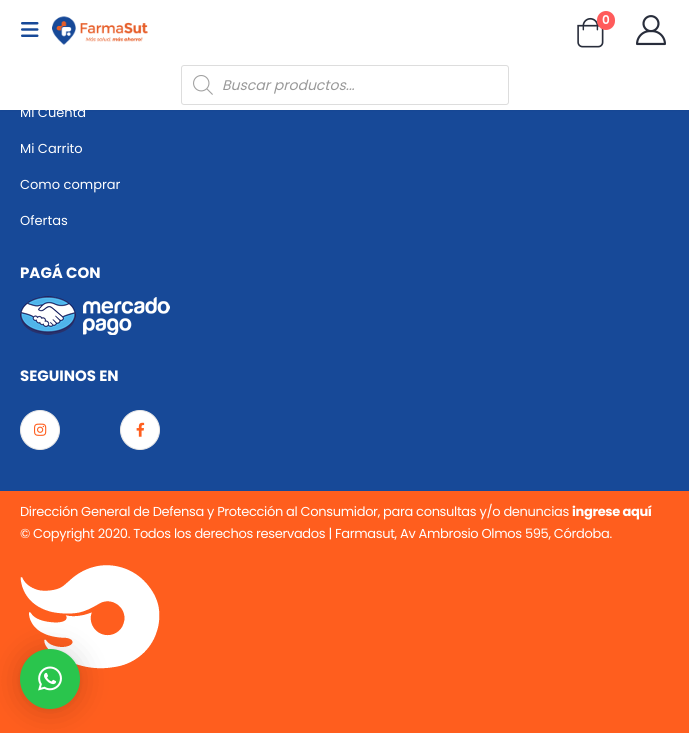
#include <cairo/cairo.h>
#include <math.h>
#include <stddef.h>


static void draw_spaced(cairo_t *cr, double x, double y, const char *s, double letter, double word) {
  cairo_move_to(cr, x, y);
  while (*s) {
    char ch[5] = {0};
    int n = 0;
    do ch[n++] = *s++; while ((*s & 0xC0) == 0x80);
    cairo_show_text(cr, ch);
    cairo_rel_move_to(cr, letter + word * (*ch == ' '), 0);
  }
}

static void rounded_rect(cairo_t *cr, double x, double y, double w, double h, double r) {
  cairo_new_sub_path(cr);
  cairo_arc(cr, x + w - r, y + h - r, r, 0, M_PI / 2);
  cairo_arc(cr, x + r, y + h - r, r, M_PI / 2, M_PI);
  cairo_arc(cr, x + r, y + r, r, M_PI, 1.5 * M_PI);
  cairo_arc(cr, x + w - r, y + r, r, 1.5 * M_PI, 2 * M_PI);
  cairo_close_path(cr);
}

static void draw_shadow(cairo_t *cr, double x, double y, double w, double h, double r, double blur, double alpha) {
  cairo_push_group_with_content(cr, CAIRO_CONTENT_ALPHA);
  cairo_set_operator(cr, CAIRO_OPERATOR_SOURCE);
  for (int i = 15; i >= -15 && fmin(w, h) + blur * i / 3 > 0; i -= 2) {
    double e = blur * i / 6;
    cairo_set_source_rgba(cr, 0, 0, 0, alpha * erfc((i - 1) / 8.5) / 2);
    rounded_rect(cr, x - e, y - e, w + 2 * e, h + 2 * e, fmax(0, fmin(r + e + blur * .6, fmin(w, h) / 2 + e)));
    cairo_fill(cr);
  }
  cairo_pattern_t *soft = cairo_pop_group(cr);
  cairo_mask(cr, soft);
  cairo_pattern_destroy(soft);
}

static void draw_image(cairo_t *cr, const char *path, double x, double y, double w, double h) {
  cairo_surface_t *image = cairo_image_surface_create_from_png(path);
  cairo_save(cr);
  cairo_set_source_surface(cr, image, x, y);
  cairo_rectangle(cr, x, y, w, h);
  cairo_fill(cr);
  cairo_restore(cr);
  cairo_surface_destroy(image);
}

static void draw(cairo_t *cr) {
  cairo_set_source_rgb(cr, 23 / 255.0, 73 / 255.0, 152 / 255.0);
  cairo_paint(cr);
  cairo_set_source_rgb(cr, 0, 0, 0);
  draw_shadow(cr, 0, 60, 689, 50, 0, 1.5, 0.06);
  cairo_set_source_rgb(cr, 1, 1, 1);
  cairo_rectangle(cr, 0, 0, 689, 110);
  cairo_fill(cr);
  draw_image(cr, "images/1.png", 21, 22, 18, 15);
  draw_image(cr, "images/2.png", 52, 16, 96, 29);
  draw_image(cr, "images/3.png", 577, 17, 27, 31);
  cairo_set_source_rgb(cr, 1, 91 / 255.0, 91 / 255.0);
  rounded_rect(cr, 597, 11, 18, 19, 9);
  cairo_fill(cr);
  draw_image(cr, "images/4.png", 636, 15, 30, 31);
  rounded_rect(cr, 181.5, 65.5, 327, 39, 2.5);
  cairo_set_source_rgb(cr, 221 / 255.0, 221 / 255.0, 221 / 255.0);
  cairo_set_line_width(cr, 1);
  cairo_stroke(cr);
  draw_image(cr, "images/5.png", 193, 75, 20, 20);
  draw_image(cr, "images/6.png", 20, 296, 150, 39);
  cairo_set_source_rgb(cr, 1, 1, 1);
  cairo_arc(cr, 40, 430, 19.5, 0, 2 * M_PI);
  cairo_fill_preserve(cr);
  cairo_set_source_rgb(cr, 231 / 255.0, 231 / 255.0, 231 / 255.0);
  cairo_stroke(cr);
  draw_image(cr, "images/7.png", 34, 423, 13, 13);
  cairo_set_source_rgb(cr, 1, 1, 1);
  cairo_arc(cr, 140, 430, 19.5, 0, 2 * M_PI);
  cairo_fill_preserve(cr);
  cairo_set_source_rgb(cr, 231 / 255.0, 231 / 255.0, 231 / 255.0);
  cairo_stroke(cr);
  draw_image(cr, "images/8.png", 136, 422, 9, 15);
  cairo_set_source_rgb(cr, 1, 94 / 255.0, 30 / 255.0);
  cairo_rectangle(cr, 0, 491, 689, 242);
  cairo_fill(cr);
  draw_image(cr, "images/9.png", 20, 565, 140, 104);
  cairo_set_source_rgb(cr, 0, 0, 0);
  draw_shadow(cr, 20, 651, 60, 60, 30, 16, 0.16);
  draw_shadow(cr, 20, 650, 60, 60, 30, 3, 0.06);
  cairo_set_source_rgb(cr, 42 / 255.0, 197 / 255.0, 77 / 255.0);
  cairo_arc(cr, 50, 679, 30, 0, 2 * M_PI);
  cairo_fill(cr);
  draw_image(cr, "images/10.png", 38, 666, 24, 25);
  cairo_select_font_face(cr, "Poppins SemiBold", CAIRO_FONT_SLANT_NORMAL, CAIRO_FONT_WEIGHT_NORMAL);
  cairo_set_font_size(cr, 12);
  cairo_set_source_rgb(cr, 1, 1, 1);
  cairo_move_to(cr, 602, 24);
  cairo_show_text(cr, "0");
  cairo_select_font_face(cr, "Poppins", CAIRO_FONT_SLANT_ITALIC, CAIRO_FONT_WEIGHT_NORMAL);
  cairo_set_font_size(cr, 14);
  cairo_set_source_rgb(cr, 153 / 255.0, 153 / 255.0, 153 / 255.0);
  cairo_move_to(cr, 222, 90);
  cairo_show_text(cr, "Buscar productos...");
  cairo_select_font_face(cr, "Poppins", CAIRO_FONT_SLANT_NORMAL, CAIRO_FONT_WEIGHT_NORMAL);
  cairo_set_font_size(cr, 13);
  cairo_set_source_rgb(cr, 1, 1, 1);
  cairo_move_to(cr, 20, 117);
  cairo_show_text(cr, "Mi Cuenta");
  cairo_move_to(cr, 20, 153);
  cairo_show_text(cr, "Mi Carrito");
  cairo_move_to(cr, 20, 189);
  cairo_show_text(cr, "Como comprar");
  cairo_move_to(cr, 20, 225);
  cairo_show_text(cr, "Ofertas");
  cairo_select_font_face(cr, "Poppins", CAIRO_FONT_SLANT_NORMAL, CAIRO_FONT_WEIGHT_BOLD);
  cairo_set_font_size(cr, 15);
  cairo_move_to(cr, 20, 278);
  cairo_show_text(cr, "PAGÁ CON");
  cairo_move_to(cr, 20, 381);
  cairo_show_text(cr, "SEGUINOS EN");
  cairo_select_font_face(cr, "Poppins", CAIRO_FONT_SLANT_NORMAL, CAIRO_FONT_WEIGHT_NORMAL);
  cairo_set_font_size(cr, 13);
  draw_spaced(cr, 20, 516, "Dirección General de Defensa y Protección al Consumidor, para consultas y/o denuncias", -0.33, 0);
  cairo_select_font_face(cr, "Poppins", CAIRO_FONT_SLANT_NORMAL, CAIRO_FONT_WEIGHT_BOLD);
  draw_spaced(cr, 572, 516, "ingrese aquí", -0.33, 0);
  cairo_select_font_face(cr, "Poppins", CAIRO_FONT_SLANT_NORMAL, CAIRO_FONT_WEIGHT_NORMAL);
  draw_spaced(cr, 20, 538, "© Copyright 2020. Todos los derechos reservados | Farmasut, Av Ambrosio Olmos 595, Córdoba.", -0.33, 0);
}

int main(void) {
  cairo_surface_t *surface = cairo_image_surface_create(CAIRO_FORMAT_RGB24, 689, 733);
  cairo_t *cr = cairo_create(surface);
  cairo_font_options_t *options = cairo_font_options_create();
  cairo_font_options_set_hint_metrics(options, CAIRO_HINT_METRICS_OFF);
  cairo_font_options_set_hint_style(options, CAIRO_HINT_STYLE_NONE);
  cairo_set_font_options(cr, options);
  cairo_set_miter_limit(cr, 4);
  draw(cr);
  cairo_surface_write_to_png(surface, "out.png");
  cairo_font_options_destroy(options);
  cairo_destroy(cr);
  cairo_surface_destroy(surface);
  return 0;
}
